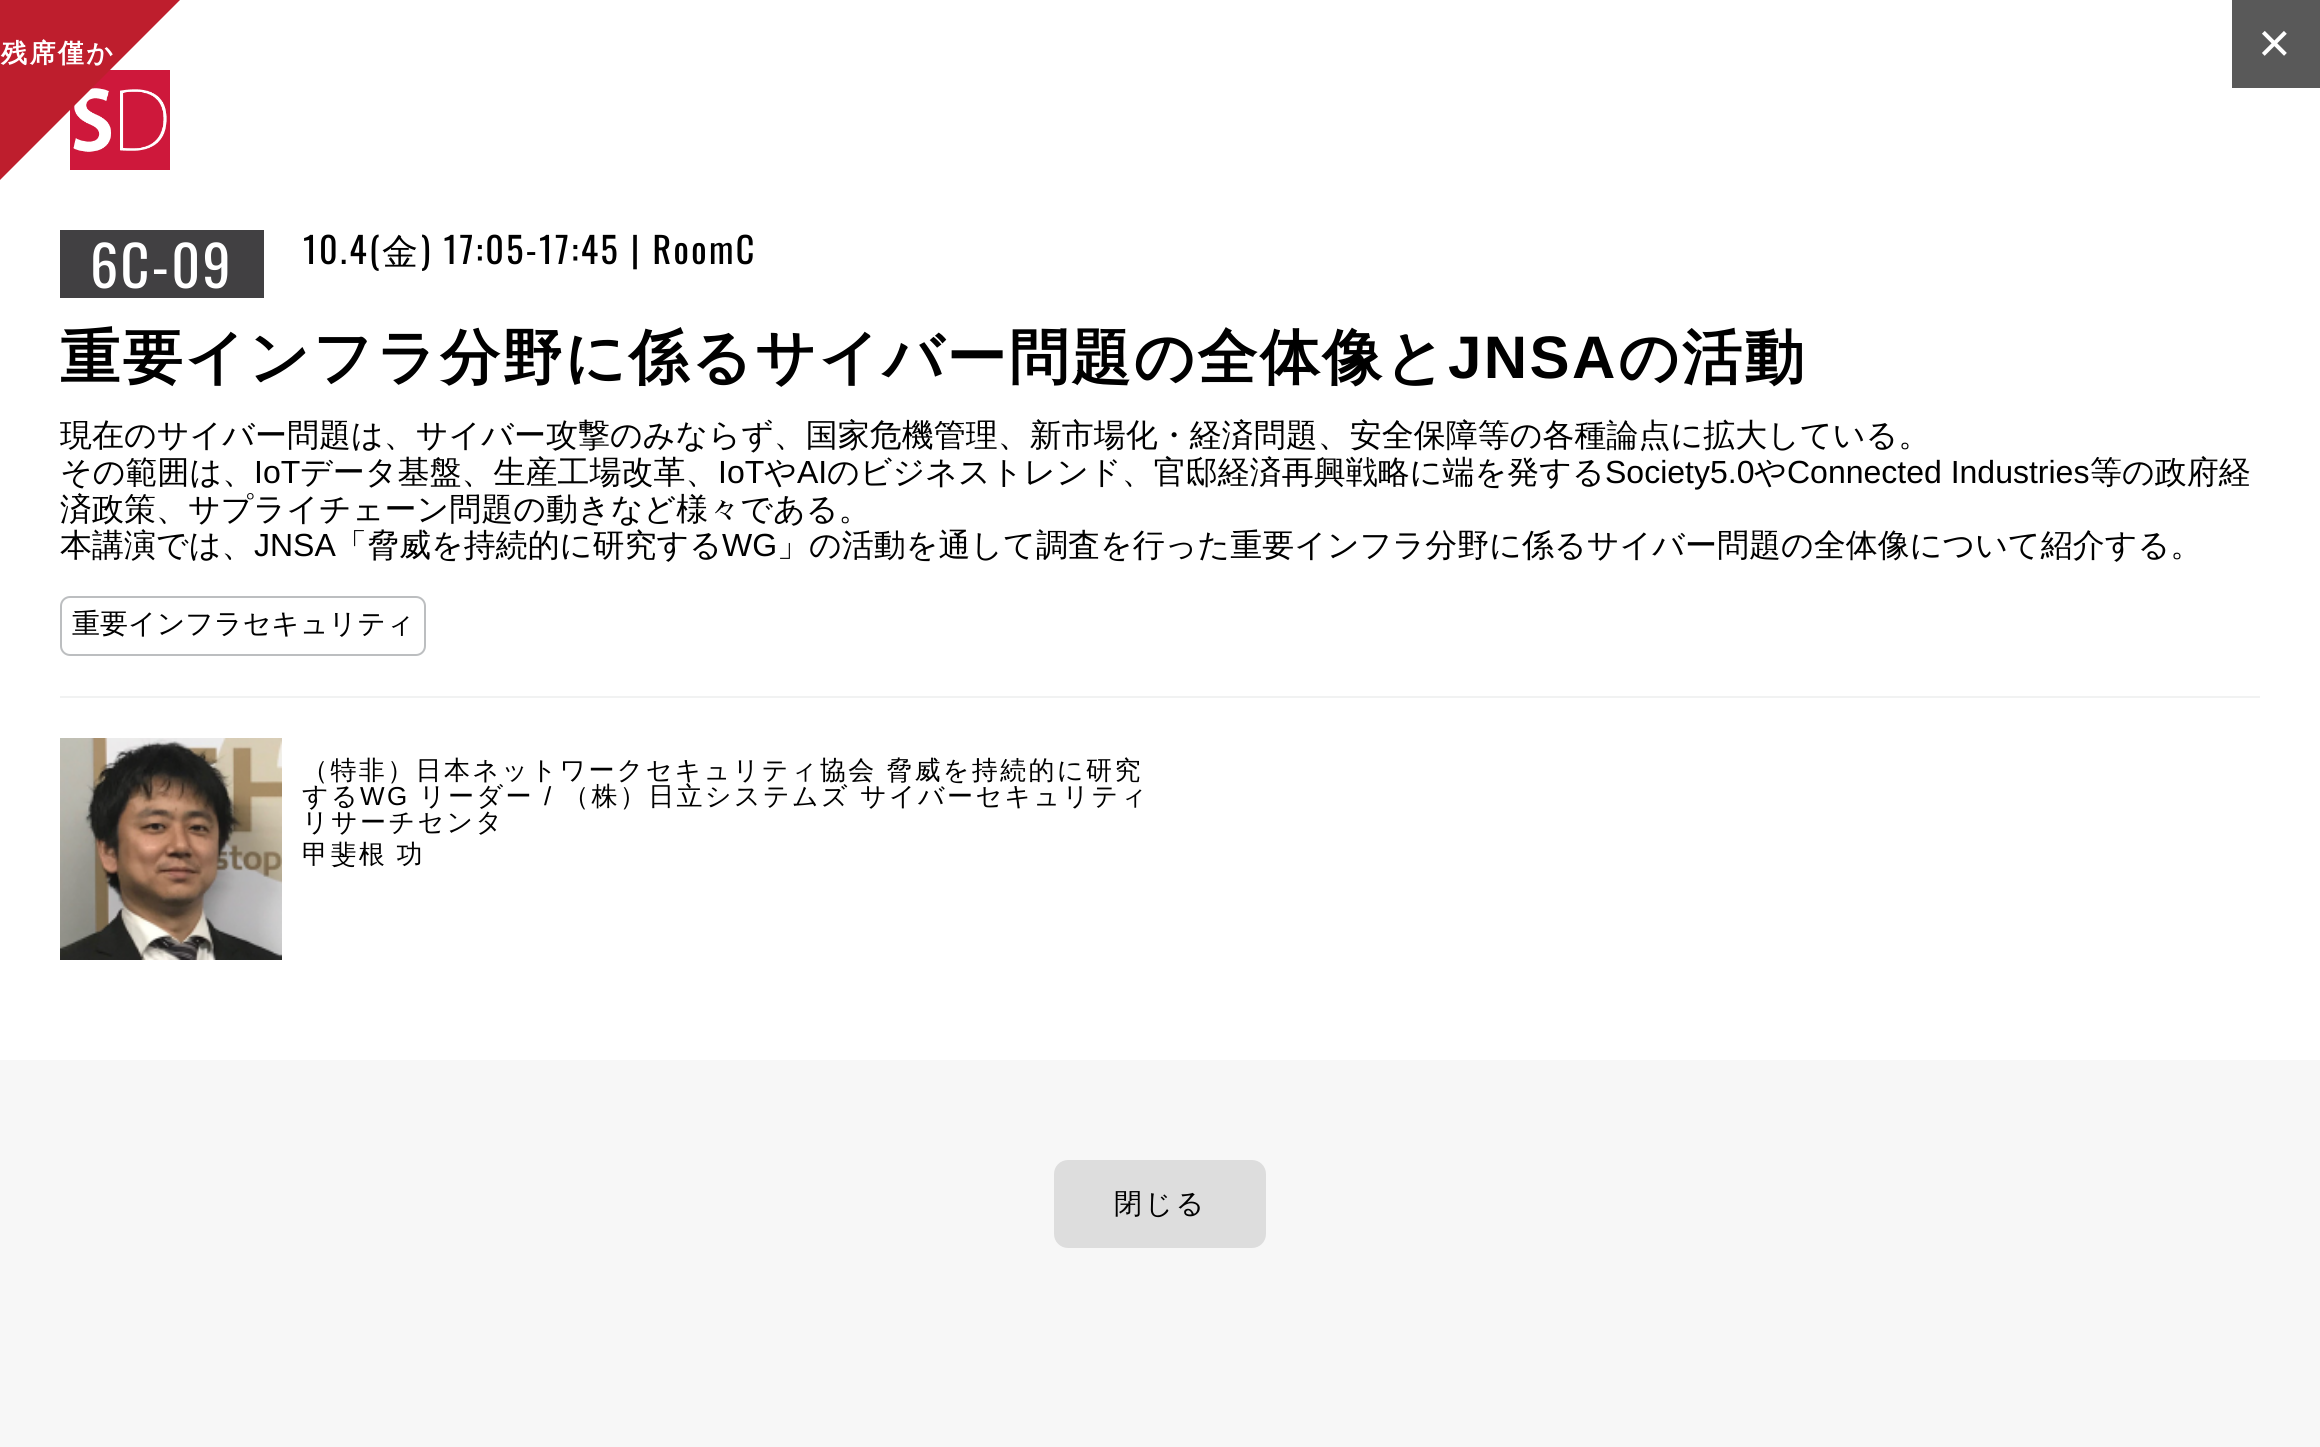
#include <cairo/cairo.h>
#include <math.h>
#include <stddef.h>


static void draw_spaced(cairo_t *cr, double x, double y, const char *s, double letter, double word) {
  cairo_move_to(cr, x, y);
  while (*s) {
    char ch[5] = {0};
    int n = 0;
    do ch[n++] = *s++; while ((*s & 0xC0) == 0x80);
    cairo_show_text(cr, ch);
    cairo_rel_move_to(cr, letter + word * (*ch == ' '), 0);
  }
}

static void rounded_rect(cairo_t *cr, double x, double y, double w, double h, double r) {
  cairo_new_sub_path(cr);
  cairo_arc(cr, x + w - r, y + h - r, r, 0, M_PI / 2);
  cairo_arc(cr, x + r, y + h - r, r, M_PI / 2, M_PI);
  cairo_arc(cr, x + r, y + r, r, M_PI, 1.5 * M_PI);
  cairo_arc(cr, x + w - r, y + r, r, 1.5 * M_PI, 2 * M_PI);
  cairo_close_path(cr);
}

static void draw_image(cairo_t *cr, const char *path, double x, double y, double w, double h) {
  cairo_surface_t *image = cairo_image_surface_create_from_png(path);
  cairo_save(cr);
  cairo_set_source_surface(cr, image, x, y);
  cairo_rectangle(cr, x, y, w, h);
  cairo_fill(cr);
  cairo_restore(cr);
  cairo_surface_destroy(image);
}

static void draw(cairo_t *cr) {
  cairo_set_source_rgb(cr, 247 / 255.0, 247 / 255.0, 247 / 255.0);
  cairo_paint(cr);
  cairo_set_source_rgb(cr, 1, 1, 1);
  cairo_rectangle(cr, 0, 0, 2320, 1060);
  cairo_fill(cr);
  draw_image(cr, "images/1.png", 70, 70, 100, 100);
  cairo_set_source_rgb(cr, 190 / 255.0, 30 / 255.0, 45 / 255.0);
  cairo_new_path(cr);
  cairo_move_to(cr, 0, 0);
  cairo_line_to(cr, 180, 0);
  cairo_line_to(cr, 0, 180);
  cairo_close_path(cr);
  cairo_fill(cr);
  cairo_set_source_rgb(cr, 89 / 255.0, 89 / 255.0, 89 / 255.0);
  cairo_rectangle(cr, 2232, 0, 88, 88);
  cairo_fill(cr);
  cairo_set_source_rgb(cr, 65 / 255.0, 64 / 255.0, 66 / 255.0);
  cairo_rectangle(cr, 60, 230, 204, 68);
  cairo_fill(cr);
  rounded_rect(cr, 61, 597, 364, 58, 9);
  cairo_set_source_rgb(cr, 188 / 255.0, 190 / 255.0, 192 / 255.0);
  cairo_stroke(cr);
  cairo_set_source_rgb(cr, 241 / 255.0, 242 / 255.0, 242 / 255.0);
  cairo_rectangle(cr, 60, 696, 2200, 2);
  cairo_fill(cr);
  draw_image(cr, "images/2.png", 60, 738, 222, 222);
  cairo_set_source_rgb(cr, 221 / 255.0, 221 / 255.0, 221 / 255.0);
  rounded_rect(cr, 1054, 1160, 212, 88, 14);
  cairo_fill(cr);
  cairo_select_font_face(cr, "WenQuanYi Zen Hei", CAIRO_FONT_SLANT_NORMAL, CAIRO_FONT_WEIGHT_BOLD);
  cairo_set_font_size(cr, 26);
  cairo_set_source_rgb(cr, 1, 1, 1);
  draw_spaced(cr, 1, 62, "残席僅か", 2.4, 0);
  cairo_select_font_face(cr, "Liberation Sans", CAIRO_FONT_SLANT_NORMAL, CAIRO_FONT_WEIGHT_NORMAL);
  cairo_set_font_size(cr, 56);
  draw_spaced(cr, 2258, 62, "×", 2.4, 0);
  cairo_select_font_face(cr, "Oswald", CAIRO_FONT_SLANT_NORMAL, CAIRO_FONT_WEIGHT_NORMAL);
  draw_spaced(cr, 90, 288, "6C-09", 2.4, 0);
  cairo_set_font_size(cr, 36);
  cairo_set_source_rgb(cr, 0, 0, 0);
  draw_spaced(cr, 303, 264, "10.4(", 2.4, 0);
  cairo_select_font_face(cr, "WenQuanYi Zen Hei Medium", CAIRO_FONT_SLANT_NORMAL, CAIRO_FONT_WEIGHT_NORMAL);
  draw_spaced(cr, 382, 264, "金", 2.4, 0);
  cairo_select_font_face(cr, "Oswald", CAIRO_FONT_SLANT_NORMAL, CAIRO_FONT_WEIGHT_NORMAL);
  draw_spaced(cr, 421, 264, ") 17:05-17:45 | RoomC", 2.4, 0);
  cairo_select_font_face(cr, "WenQuanYi Zen Hei", CAIRO_FONT_SLANT_NORMAL, CAIRO_FONT_WEIGHT_BOLD);
  cairo_set_font_size(cr, 60);
  draw_spaced(cr, 60, 378, "重要インフラ分野に係るサイバー問題の全体像と", 2.4, 0);
  cairo_select_font_face(cr, "Liberation Sans", CAIRO_FONT_SLANT_NORMAL, CAIRO_FONT_WEIGHT_BOLD);
  draw_spaced(cr, 1448, 378, "JNSA", 2.4, 0);
  cairo_select_font_face(cr, "WenQuanYi Zen Hei", CAIRO_FONT_SLANT_NORMAL, CAIRO_FONT_WEIGHT_BOLD);
  draw_spaced(cr, 1618, 378, "の活動", 2.4, 0);
  cairo_select_font_face(cr, "WenQuanYi Zen Hei Medium", CAIRO_FONT_SLANT_NORMAL, CAIRO_FONT_WEIGHT_NORMAL);
  cairo_set_font_size(cr, 32);
  cairo_move_to(cr, 60, 446);
  cairo_show_text(cr, "現在のサイバー問題は、サイバー攻撃のみならず、国家危機管理、新市場化・経済問題、安全保障等の各種論点に拡大している。");
  cairo_move_to(cr, 60, 483);
  cairo_show_text(cr, "その範囲は、");
  cairo_select_font_face(cr, "Liberation Sans", CAIRO_FONT_SLANT_NORMAL, CAIRO_FONT_WEIGHT_NORMAL);
  cairo_move_to(cr, 254, 483);
  cairo_show_text(cr, "IoT");
  cairo_select_font_face(cr, "WenQuanYi Zen Hei Medium", CAIRO_FONT_SLANT_NORMAL, CAIRO_FONT_WEIGHT_NORMAL);
  cairo_move_to(cr, 300, 483);
  cairo_show_text(cr, "データ基盤、生産工場改革、");
  cairo_select_font_face(cr, "Liberation Sans", CAIRO_FONT_SLANT_NORMAL, CAIRO_FONT_WEIGHT_NORMAL);
  cairo_move_to(cr, 718, 483);
  cairo_show_text(cr, "IoT");
  cairo_select_font_face(cr, "WenQuanYi Zen Hei Medium", CAIRO_FONT_SLANT_NORMAL, CAIRO_FONT_WEIGHT_NORMAL);
  cairo_move_to(cr, 764, 483);
  cairo_show_text(cr, "や");
  cairo_select_font_face(cr, "Liberation Sans", CAIRO_FONT_SLANT_NORMAL, CAIRO_FONT_WEIGHT_NORMAL);
  cairo_move_to(cr, 797, 483);
  cairo_show_text(cr, "AI");
  cairo_select_font_face(cr, "WenQuanYi Zen Hei Medium", CAIRO_FONT_SLANT_NORMAL, CAIRO_FONT_WEIGHT_NORMAL);
  cairo_move_to(cr, 827, 483);
  cairo_show_text(cr, "のビジネストレンド、官邸経済再興戦略に端を発する");
  cairo_select_font_face(cr, "Liberation Sans", CAIRO_FONT_SLANT_NORMAL, CAIRO_FONT_WEIGHT_NORMAL);
  cairo_move_to(cr, 1605, 483);
  cairo_show_text(cr, "Society5.0");
  cairo_select_font_face(cr, "WenQuanYi Zen Hei Medium", CAIRO_FONT_SLANT_NORMAL, CAIRO_FONT_WEIGHT_NORMAL);
  cairo_move_to(cr, 1754, 483);
  cairo_show_text(cr, "や");
  cairo_select_font_face(cr, "Liberation Sans", CAIRO_FONT_SLANT_NORMAL, CAIRO_FONT_WEIGHT_NORMAL);
  cairo_move_to(cr, 1787, 483);
  cairo_show_text(cr, "Connected Industries");
  cairo_select_font_face(cr, "WenQuanYi Zen Hei Medium", CAIRO_FONT_SLANT_NORMAL, CAIRO_FONT_WEIGHT_NORMAL);
  cairo_move_to(cr, 2090, 483);
  cairo_show_text(cr, "等の政府経");
  cairo_move_to(cr, 60, 520);
  cairo_show_text(cr, "済政策、サプライチェーン問題の動きなど様々である。");
  cairo_move_to(cr, 60, 556);
  cairo_show_text(cr, "本講演では、");
  cairo_select_font_face(cr, "Liberation Sans", CAIRO_FONT_SLANT_NORMAL, CAIRO_FONT_WEIGHT_NORMAL);
  cairo_move_to(cr, 254, 556);
  cairo_show_text(cr, "JNSA");
  cairo_select_font_face(cr, "WenQuanYi Zen Hei Medium", CAIRO_FONT_SLANT_NORMAL, CAIRO_FONT_WEIGHT_NORMAL);
  cairo_move_to(cr, 335, 556);
  cairo_show_text(cr, "「脅威を持続的に研究する");
  cairo_select_font_face(cr, "Liberation Sans", CAIRO_FONT_SLANT_NORMAL, CAIRO_FONT_WEIGHT_NORMAL);
  cairo_move_to(cr, 722, 556);
  cairo_show_text(cr, "WG");
  cairo_select_font_face(cr, "WenQuanYi Zen Hei Medium", CAIRO_FONT_SLANT_NORMAL, CAIRO_FONT_WEIGHT_NORMAL);
  cairo_move_to(cr, 777, 556);
  cairo_show_text(cr, "」の活動を通して調査を行った重要インフラ分野に係るサイバー問題の全体像について紹介する。");
  cairo_set_font_size(cr, 28);
  cairo_move_to(cr, 72, 633);
  cairo_show_text(cr, "重要インフラセキュリティ");
  cairo_set_font_size(cr, 26);
  draw_spaced(cr, 302, 779, "（特非）日本ネットワークセキュリティ協会", 2.4, 0);
  draw_spaced(cr, 886, 779, "脅威を持続的に研究", 2.4, 0);
  draw_spaced(cr, 302, 805, "する", 2.4, 0);
  cairo_select_font_face(cr, "Liberation Sans", CAIRO_FONT_SLANT_NORMAL, CAIRO_FONT_WEIGHT_NORMAL);
  draw_spaced(cr, 360, 805, "WG", 2.4, 0);
  cairo_select_font_face(cr, "WenQuanYi Zen Hei Medium", CAIRO_FONT_SLANT_NORMAL, CAIRO_FONT_WEIGHT_NORMAL);
  draw_spaced(cr, 419, 805, "リーダー", 2.4, 0);
  cairo_select_font_face(cr, "Liberation Sans", CAIRO_FONT_SLANT_NORMAL, CAIRO_FONT_WEIGHT_NORMAL);
  draw_spaced(cr, 544, 805, "/", 2.4, 0);
  cairo_select_font_face(cr, "WenQuanYi Zen Hei Medium", CAIRO_FONT_SLANT_NORMAL, CAIRO_FONT_WEIGHT_NORMAL);
  draw_spaced(cr, 563, 805, "（株）日立システムズ", 2.4, 0);
  draw_spaced(cr, 860, 805, "サイバーセキュリティ", 2.4, 0);
  draw_spaced(cr, 302, 831, "リサーチセンタ", 2.4, 0);
  draw_spaced(cr, 302, 863, "甲斐根 功", 2.4, -1);
  cairo_set_font_size(cr, 28);
  draw_spaced(cr, 1114, 1213, "閉じる", 2.4, 0);
}

int main(void) {
  cairo_surface_t *surface = cairo_image_surface_create(CAIRO_FORMAT_RGB24, 2320, 1447);
  cairo_t *cr = cairo_create(surface);
  cairo_font_options_t *options = cairo_font_options_create();
  cairo_font_options_set_hint_metrics(options, CAIRO_HINT_METRICS_OFF);
  cairo_font_options_set_hint_style(options, CAIRO_HINT_STYLE_NONE);
  cairo_set_font_options(cr, options);
  cairo_set_miter_limit(cr, 4);
  draw(cr);
  cairo_surface_write_to_png(surface, "out.png");
  cairo_font_options_destroy(options);
  cairo_destroy(cr);
  cairo_surface_destroy(surface);
  return 0;
}
